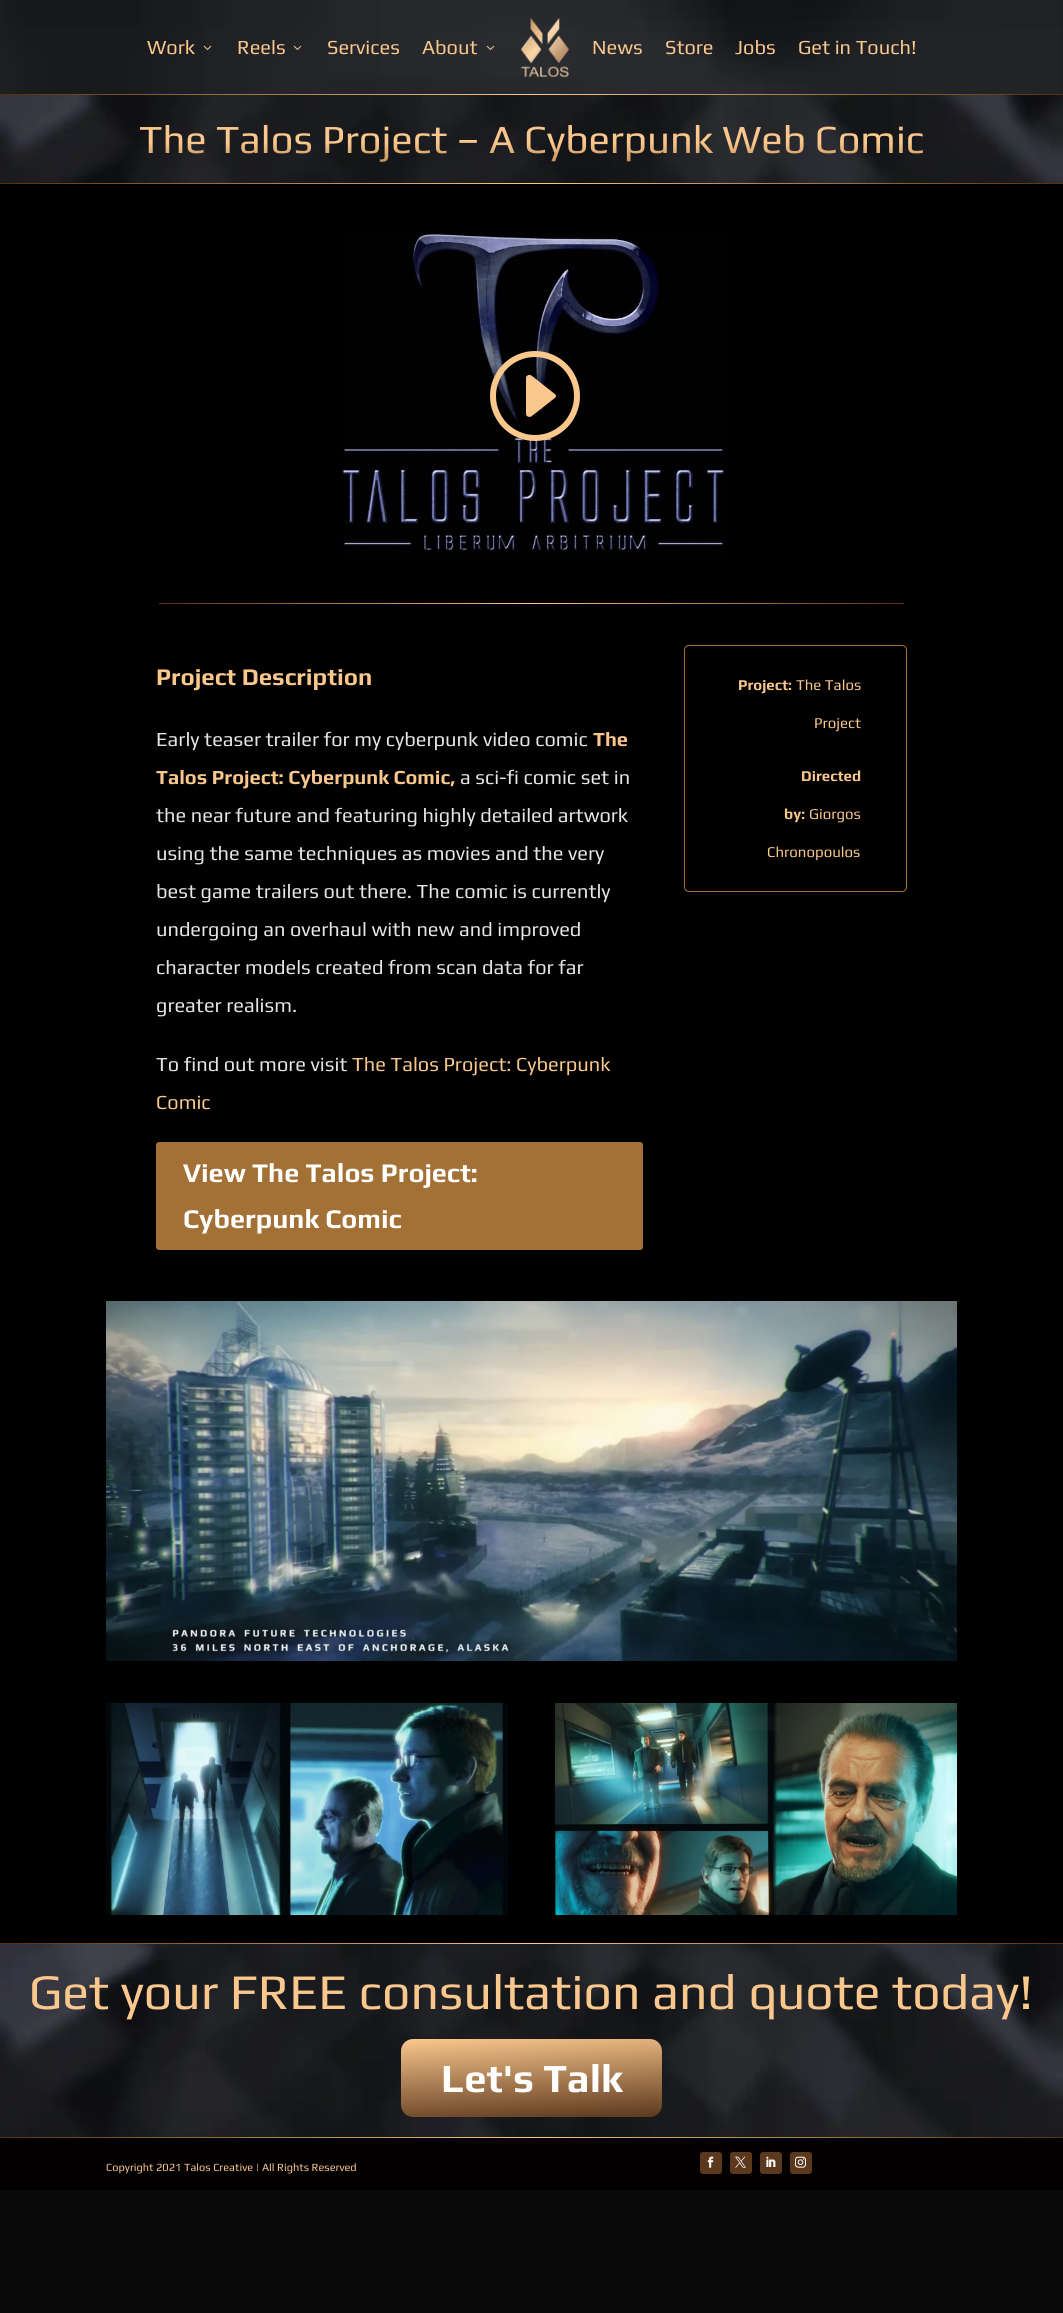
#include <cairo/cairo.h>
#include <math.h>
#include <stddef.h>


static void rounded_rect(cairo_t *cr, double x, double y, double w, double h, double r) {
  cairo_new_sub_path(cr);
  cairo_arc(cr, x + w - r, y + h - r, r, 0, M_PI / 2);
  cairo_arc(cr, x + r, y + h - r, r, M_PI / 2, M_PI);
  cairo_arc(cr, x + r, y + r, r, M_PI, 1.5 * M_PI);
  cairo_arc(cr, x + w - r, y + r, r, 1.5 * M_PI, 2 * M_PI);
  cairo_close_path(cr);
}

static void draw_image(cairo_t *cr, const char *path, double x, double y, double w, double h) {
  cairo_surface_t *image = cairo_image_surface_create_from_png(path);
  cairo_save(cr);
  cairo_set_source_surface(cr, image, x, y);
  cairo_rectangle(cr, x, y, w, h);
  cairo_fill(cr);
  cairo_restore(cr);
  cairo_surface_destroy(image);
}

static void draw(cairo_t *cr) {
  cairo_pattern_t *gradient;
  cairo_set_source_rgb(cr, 10 / 255.0, 10 / 255.0, 10 / 255.0);
  cairo_paint(cr);
  draw_image(cr, "images/1.png", 0, 0, 1063, 94);
  draw_image(cr, "images/2.png", 203, 45, 9, 5);
  draw_image(cr, "images/3.png", 293, 45, 9, 5);
  draw_image(cr, "images/4.png", 486, 45, 9, 5);
  draw_image(cr, "images/5.png", 520, 18, 50, 59);
  gradient = cairo_pattern_create_radial(532, 95, 0, 532, 95, 532);
  cairo_pattern_add_color_stop_rgba(gradient, 0, 250 / 255.0, 199 / 255.0, 141 / 255.0, 1);
  cairo_pattern_add_color_stop_rgba(gradient, 1, 91 / 255.0, 46 / 255.0, 11 / 255.0, 1);
  cairo_set_source(cr, gradient);
  cairo_pattern_destroy(gradient);
  cairo_rectangle(cr, 0, 94, 1063, 1);
  cairo_fill(cr);
  draw_image(cr, "images/6.png", 0, 95, 1063, 88);
  gradient = cairo_pattern_create_radial(532, 184, 0, 532, 184, 532);
  cairo_pattern_add_color_stop_rgba(gradient, 0, 250 / 255.0, 199 / 255.0, 141 / 255.0, 1);
  cairo_pattern_add_color_stop_rgba(gradient, 1, 91 / 255.0, 46 / 255.0, 11 / 255.0, 1);
  cairo_set_source(cr, gradient);
  cairo_pattern_destroy(gradient);
  cairo_rectangle(cr, 0, 183, 1063, 1);
  cairo_fill(cr);
  cairo_set_source_rgb(cr, 0, 0, 0);
  cairo_rectangle(cr, 0, 184, 1063, 1759);
  cairo_fill(cr);
  draw_image(cr, "images/7.png", 341, 231, 386, 325);
  draw_image(cr, "images/8.png", 490, 351, 90, 90);
  gradient = cairo_pattern_create_radial(532, 604, 0, 532, 604, 373);
  cairo_pattern_add_color_stop_rgba(gradient, 0, 250 / 255.0, 199 / 255.0, 141 / 255.0, 1);
  cairo_pattern_add_color_stop_rgba(gradient, 1, 91 / 255.0, 46 / 255.0, 11 / 255.0, 1);
  cairo_set_source(cr, gradient);
  cairo_pattern_destroy(gradient);
  cairo_rectangle(cr, 159, 603, 745, 1);
  cairo_fill(cr);
  cairo_set_source_rgb(cr, 163 / 255.0, 112 / 255.0, 53 / 255.0);
  rounded_rect(cr, 156, 1142, 487, 108, 3);
  cairo_fill(cr);
  rounded_rect(cr, 684.5, 645.5, 222, 246, 4.5);
  cairo_set_line_width(cr, 1);
  cairo_stroke(cr);
  draw_image(cr, "images/9.png", 106, 1301, 851, 360);
  draw_image(cr, "images/10.png", 106, 1703, 402, 212);
  draw_image(cr, "images/11.png", 555, 1703, 402, 212);
  draw_image(cr, "images/12.png", 0, 1944, 1063, 193);
  gradient = cairo_pattern_create_radial(532, 1944, 0, 532, 1944, 532);
  cairo_pattern_add_color_stop_rgba(gradient, 0, 250 / 255.0, 199 / 255.0, 141 / 255.0, 1);
  cairo_pattern_add_color_stop_rgba(gradient, 1, 91 / 255.0, 46 / 255.0, 11 / 255.0, 1);
  cairo_set_source(cr, gradient);
  cairo_pattern_destroy(gradient);
  cairo_rectangle(cr, 0, 1943, 1063, 1);
  cairo_fill(cr);
  gradient = cairo_pattern_create_linear(529, 2032, 534, 2124);
  cairo_pattern_add_color_stop_rgba(gradient, 0, 250 / 255.0, 199 / 255.0, 141 / 255.0, 1);
  cairo_pattern_add_color_stop_rgba(gradient, 1, 92 / 255.0, 56 / 255.0, 29 / 255.0, 1);
  cairo_set_source(cr, gradient);
  cairo_pattern_destroy(gradient);
  rounded_rect(cr, 401, 2039, 261, 78, 12);
  cairo_fill(cr);
  gradient = cairo_pattern_create_radial(532, 2138, 0, 532, 2138, 532);
  cairo_pattern_add_color_stop_rgba(gradient, 0, 250 / 255.0, 199 / 255.0, 141 / 255.0, 1);
  cairo_pattern_add_color_stop_rgba(gradient, 1, 91 / 255.0, 46 / 255.0, 11 / 255.0, 1);
  cairo_set_source(cr, gradient);
  cairo_pattern_destroy(gradient);
  cairo_rectangle(cr, 0, 2137, 1063, 1);
  cairo_fill(cr);
  cairo_set_source_rgb(cr, 2 / 255.0, 0, 0);
  cairo_rectangle(cr, 0, 2138, 1063, 52);
  cairo_fill(cr);
  cairo_set_source_rgb(cr, 92 / 255.0, 56 / 255.0, 29 / 255.0);
  rounded_rect(cr, 700, 2152, 22, 22, 3);
  cairo_fill(cr);
  draw_image(cr, "images/13.png", 707, 2156, 7, 12);
  rounded_rect(cr, 730, 2152, 22, 22, 3);
  cairo_fill(cr);
  draw_image(cr, "images/14.png", 735, 2156, 11, 12);
  rounded_rect(cr, 760, 2152, 22, 22, 3);
  cairo_fill(cr);
  draw_image(cr, "images/15.png", 766, 2156, 10, 11);
  rounded_rect(cr, 790, 2152, 22, 22, 3);
  cairo_fill(cr);
  draw_image(cr, "images/16.png", 795, 2156, 11, 12);
  cairo_select_font_face(cr, "Play", CAIRO_FONT_SLANT_NORMAL, CAIRO_FONT_WEIGHT_NORMAL);
  cairo_set_font_size(cr, 20);
  cairo_set_source_rgb(cr, 250 / 255.0, 199 / 255.0, 141 / 255.0);
  cairo_move_to(cr, 147, 54);
  cairo_show_text(cr, "Work");
  cairo_move_to(cr, 237, 54);
  cairo_show_text(cr, "Reels");
  cairo_move_to(cr, 327, 54);
  cairo_show_text(cr, "Services");
  cairo_move_to(cr, 422, 54);
  cairo_show_text(cr, "About");
  cairo_move_to(cr, 592, 54);
  cairo_show_text(cr, "News");
  cairo_move_to(cr, 665, 54);
  cairo_show_text(cr, "Store");
  cairo_move_to(cr, 735, 54);
  cairo_show_text(cr, "Jobs");
  cairo_move_to(cr, 798, 54);
  cairo_show_text(cr, "Get in Touch!");
  cairo_set_font_size(cr, 40);
  gradient = cairo_pattern_create_linear(532, 105, 532, 173);
  cairo_pattern_add_color_stop_rgba(gradient, 0.55, 250 / 255.0, 199 / 255.0, 141 / 255.0, 1);
  cairo_pattern_add_color_stop_rgba(gradient, 1, 163 / 255.0, 112 / 255.0, 53 / 255.0, 1);
  cairo_set_source(cr, gradient);
  cairo_pattern_destroy(gradient);
  cairo_move_to(cr, 139, 153);
  cairo_show_text(cr, "The Talos Project – A Cyberpunk Web Comic");
  cairo_select_font_face(cr, "Play", CAIRO_FONT_SLANT_NORMAL, CAIRO_FONT_WEIGHT_BOLD);
  cairo_set_font_size(cr, 24);
  cairo_set_source_rgb(cr, 250 / 255.0, 199 / 255.0, 141 / 255.0);
  cairo_move_to(cr, 156, 685);
  cairo_show_text(cr, "Project Description");
  cairo_select_font_face(cr, "Play", CAIRO_FONT_SLANT_NORMAL, CAIRO_FONT_WEIGHT_NORMAL);
  cairo_set_font_size(cr, 20);
  cairo_set_source_rgb(cr, 229 / 255.0, 229 / 255.0, 229 / 255.0);
  cairo_move_to(cr, 156, 746);
  cairo_show_text(cr, "Early teaser trailer for my cyberpunk video comic");
  cairo_select_font_face(cr, "Play", CAIRO_FONT_SLANT_NORMAL, CAIRO_FONT_WEIGHT_BOLD);
  cairo_set_source_rgb(cr, 250 / 255.0, 199 / 255.0, 141 / 255.0);
  cairo_move_to(cr, 593, 746);
  cairo_show_text(cr, "The");
  cairo_move_to(cr, 156, 784);
  cairo_show_text(cr, "Talos Project: Cyberpunk Comic,");
  cairo_select_font_face(cr, "Play", CAIRO_FONT_SLANT_NORMAL, CAIRO_FONT_WEIGHT_NORMAL);
  cairo_set_source_rgb(cr, 229 / 255.0, 229 / 255.0, 229 / 255.0);
  cairo_move_to(cr, 460, 784);
  cairo_show_text(cr, "a sci-fi comic set in");
  cairo_move_to(cr, 156, 822);
  cairo_show_text(cr, "the near future and featuring highly detailed artwork");
  cairo_move_to(cr, 156, 860);
  cairo_show_text(cr, "using the same techniques as movies and the very");
  cairo_move_to(cr, 156, 898);
  cairo_show_text(cr, "best game trailers out there. The comic is currently");
  cairo_move_to(cr, 156, 936);
  cairo_show_text(cr, "undergoing an overhaul with new and improved");
  cairo_move_to(cr, 156, 974);
  cairo_show_text(cr, "character models created from scan data for far");
  cairo_move_to(cr, 156, 1012);
  cairo_show_text(cr, "greater realism.");
  cairo_move_to(cr, 156, 1071);
  cairo_show_text(cr, "To find out more visit");
  cairo_set_source_rgb(cr, 250 / 255.0, 199 / 255.0, 141 / 255.0);
  cairo_move_to(cr, 352, 1071);
  cairo_show_text(cr, "The Talos Project: Cyberpunk");
  cairo_move_to(cr, 156, 1109);
  cairo_show_text(cr, "Comic");
  cairo_select_font_face(cr, "Play", CAIRO_FONT_SLANT_NORMAL, CAIRO_FONT_WEIGHT_BOLD);
  cairo_set_font_size(cr, 27);
  cairo_set_source_rgb(cr, 1, 1, 1);
  cairo_move_to(cr, 183, 1182);
  cairo_show_text(cr, "View The Talos Project:");
  cairo_move_to(cr, 183, 1228);
  cairo_show_text(cr, "Cyberpunk Comic");
  cairo_set_font_size(cr, 15);
  cairo_set_source_rgb(cr, 250 / 255.0, 199 / 255.0, 141 / 255.0);
  cairo_move_to(cr, 738, 690);
  cairo_show_text(cr, "Project:");
  cairo_select_font_face(cr, "Play", CAIRO_FONT_SLANT_NORMAL, CAIRO_FONT_WEIGHT_NORMAL);
  cairo_move_to(cr, 796, 690);
  cairo_show_text(cr, "The Talos");
  cairo_move_to(cr, 814, 728);
  cairo_show_text(cr, "Project");
  cairo_select_font_face(cr, "Play", CAIRO_FONT_SLANT_NORMAL, CAIRO_FONT_WEIGHT_BOLD);
  cairo_move_to(cr, 801, 781);
  cairo_show_text(cr, "Directed");
  cairo_move_to(cr, 784, 819);
  cairo_show_text(cr, "by:");
  cairo_select_font_face(cr, "Play", CAIRO_FONT_SLANT_NORMAL, CAIRO_FONT_WEIGHT_NORMAL);
  cairo_move_to(cr, 809, 819);
  cairo_show_text(cr, "Giorgos");
  cairo_move_to(cr, 767, 857);
  cairo_show_text(cr, "Chronopoulos");
  cairo_set_font_size(cr, 50);
  cairo_move_to(cr, 29, 2009);
  cairo_show_text(cr, "Get your FREE consultation and quote today!");
  cairo_select_font_face(cr, "Play", CAIRO_FONT_SLANT_NORMAL, CAIRO_FONT_WEIGHT_BOLD);
  cairo_set_font_size(cr, 40);
  cairo_set_source_rgb(cr, 1, 1, 1);
  cairo_move_to(cr, 441, 2092);
  cairo_show_text(cr, "Let's Talk");
  cairo_select_font_face(cr, "Play", CAIRO_FONT_SLANT_NORMAL, CAIRO_FONT_WEIGHT_NORMAL);
  cairo_set_font_size(cr, 11);
  cairo_set_source_rgb(cr, 250 / 255.0, 199 / 255.0, 141 / 255.0);
  cairo_move_to(cr, 106, 2171);
  cairo_show_text(cr, "Copyright 2021 Talos Creative | All Rights Reserved");
}

int main(void) {
  cairo_surface_t *surface = cairo_image_surface_create(CAIRO_FORMAT_RGB24, 1063, 2313);
  cairo_t *cr = cairo_create(surface);
  cairo_font_options_t *options = cairo_font_options_create();
  cairo_font_options_set_hint_metrics(options, CAIRO_HINT_METRICS_OFF);
  cairo_font_options_set_hint_style(options, CAIRO_HINT_STYLE_NONE);
  cairo_set_font_options(cr, options);
  cairo_set_miter_limit(cr, 4);
  draw(cr);
  cairo_surface_write_to_png(surface, "out.png");
  cairo_font_options_destroy(options);
  cairo_destroy(cr);
  cairo_surface_destroy(surface);
  return 0;
}
